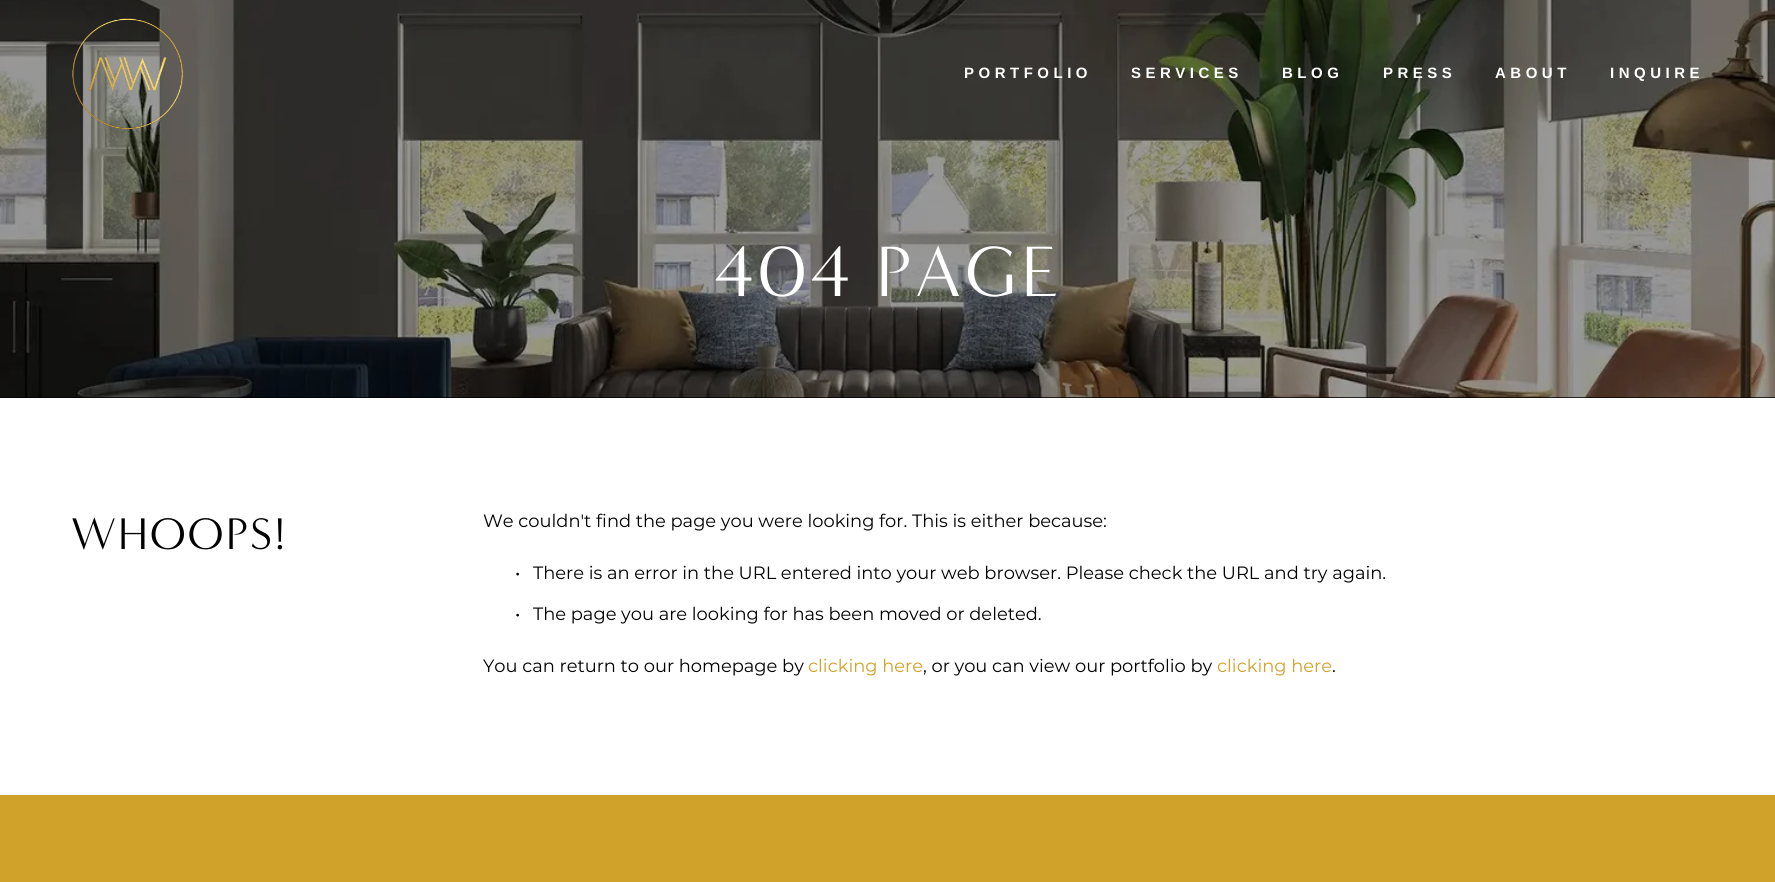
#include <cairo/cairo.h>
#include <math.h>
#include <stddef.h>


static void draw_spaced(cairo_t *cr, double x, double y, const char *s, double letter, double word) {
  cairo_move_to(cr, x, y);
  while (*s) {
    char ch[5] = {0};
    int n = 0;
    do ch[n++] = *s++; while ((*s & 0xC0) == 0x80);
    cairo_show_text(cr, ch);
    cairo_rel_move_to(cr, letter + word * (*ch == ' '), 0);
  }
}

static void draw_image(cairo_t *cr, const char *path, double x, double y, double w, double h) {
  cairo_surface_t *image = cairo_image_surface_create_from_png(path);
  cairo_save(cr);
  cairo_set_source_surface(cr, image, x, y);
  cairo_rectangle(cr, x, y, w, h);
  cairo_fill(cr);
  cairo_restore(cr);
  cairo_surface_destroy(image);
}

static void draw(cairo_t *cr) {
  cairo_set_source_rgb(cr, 1, 1, 1);
  cairo_paint(cr);
  cairo_set_source_rgb(cr, 0, 0, 0);
  cairo_rectangle(cr, 0, 397, 1775, 1);
  cairo_fill(cr);
  draw_image(cr, "images/2.png", 0, 0, 1775, 398);
  draw_image(cr, "images/1.png", 72, 18, 112, 112);
  cairo_set_source_rgb(cr, 209 / 255.0, 162 / 255.0, 42 / 255.0);
  cairo_rectangle(cr, 0, 795, 1775, 87);
  cairo_fill(cr);
  cairo_select_font_face(cr, "Liberation Sans", CAIRO_FONT_SLANT_NORMAL, CAIRO_FONT_WEIGHT_BOLD);
  cairo_set_font_size(cr, 15);
  cairo_set_source_rgb(cr, 1, 1, 1);
  draw_spaced(cr, 964, 78, "PORTFOLIO", 4.5, 0);
  draw_spaced(cr, 1131, 78, "SERVICES", 4.5, 0);
  draw_spaced(cr, 1282, 78, "BLOG", 4.5, 0);
  draw_spaced(cr, 1383, 78, "PRESS", 4.5, 0);
  draw_spaced(cr, 1495, 78, "ABOUT", 4.5, 0);
  draw_spaced(cr, 1610, 78, "INQUIRE", 4.5, 0);
  cairo_select_font_face(cr, "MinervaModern", CAIRO_FONT_SLANT_NORMAL, CAIRO_FONT_WEIGHT_NORMAL);
  cairo_set_font_size(cr, 73.25);
  draw_spaced(cr, 714, 296, "404 PAGE", 3.75, 0);
  cairo_set_font_size(cr, 45.5);
  cairo_set_source_rgb(cr, 0, 0, 0);
  draw_spaced(cr, 71, 549, "WHOOPS!", 2.25, 0);
  cairo_select_font_face(cr, "Montserrat", CAIRO_FONT_SLANT_NORMAL, CAIRO_FONT_WEIGHT_NORMAL);
  cairo_set_font_size(cr, 17.85);
  cairo_move_to(cr, 483, 527);
  cairo_show_text(cr, "We couldn't find the page you were looking for. This is either because:");
  cairo_move_to(cr, 515, 579);
  cairo_show_text(cr, "•");
  cairo_move_to(cr, 533, 579);
  cairo_show_text(cr, "There is an error in the URL entered into your web browser. Please check the URL and try again.");
  cairo_move_to(cr, 515, 620);
  cairo_show_text(cr, "•");
  cairo_move_to(cr, 533, 620);
  cairo_show_text(cr, "The page you are looking for has been moved or deleted.");
  cairo_move_to(cr, 483, 672);
  cairo_show_text(cr, "You can return to our homepage by");
  cairo_set_source_rgb(cr, 209 / 255.0, 162 / 255.0, 42 / 255.0);
  cairo_move_to(cr, 808, 672);
  cairo_show_text(cr, "clicking here");
  cairo_set_source_rgb(cr, 0, 0, 0);
  cairo_move_to(cr, 923, 672);
  cairo_show_text(cr, ", or you can view our portfolio by");
  cairo_set_source_rgb(cr, 209 / 255.0, 162 / 255.0, 42 / 255.0);
  cairo_move_to(cr, 1217, 672);
  cairo_show_text(cr, "clicking here");
  cairo_set_source_rgb(cr, 0, 0, 0);
  cairo_move_to(cr, 1332, 672);
  cairo_show_text(cr, ".");
}

int main(void) {
  cairo_surface_t *surface = cairo_image_surface_create(CAIRO_FORMAT_RGB24, 1775, 882);
  cairo_t *cr = cairo_create(surface);
  cairo_font_options_t *options = cairo_font_options_create();
  cairo_font_options_set_hint_metrics(options, CAIRO_HINT_METRICS_OFF);
  cairo_font_options_set_hint_style(options, CAIRO_HINT_STYLE_NONE);
  cairo_set_font_options(cr, options);
  cairo_set_miter_limit(cr, 4);
  draw(cr);
  cairo_surface_write_to_png(surface, "out.png");
  cairo_font_options_destroy(options);
  cairo_destroy(cr);
  cairo_surface_destroy(surface);
  return 0;
}
